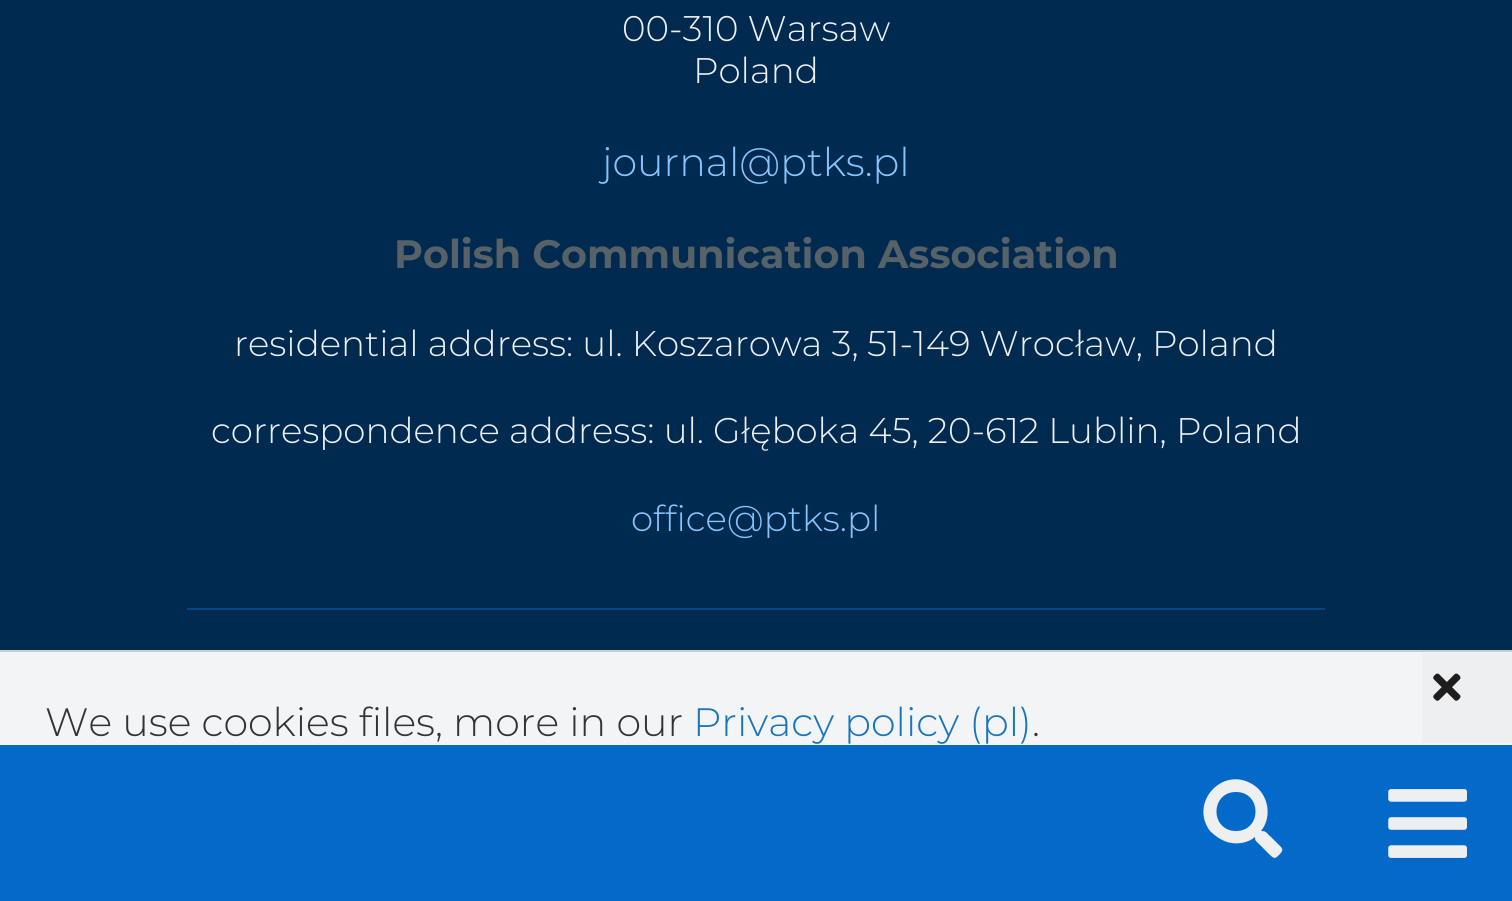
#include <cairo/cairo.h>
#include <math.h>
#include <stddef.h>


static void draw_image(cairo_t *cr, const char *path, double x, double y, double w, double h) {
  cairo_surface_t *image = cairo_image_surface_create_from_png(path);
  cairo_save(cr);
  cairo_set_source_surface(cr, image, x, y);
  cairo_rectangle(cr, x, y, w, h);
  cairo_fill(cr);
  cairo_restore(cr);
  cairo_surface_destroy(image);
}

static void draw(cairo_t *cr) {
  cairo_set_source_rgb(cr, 1 / 255.0, 42 / 255.0, 80 / 255.0);
  cairo_paint(cr);
  cairo_set_source_rgb(cr, 242 / 255.0, 244 / 255.0, 246 / 255.0);
  cairo_rectangle(cr, 0, 652, 1512, 93);
  cairo_fill(cr);
  cairo_set_source_rgb(cr, 2 / 255.0, 71 / 255.0, 134 / 255.0);
  cairo_rectangle(cr, 187, 608, 1138, 2);
  cairo_fill(cr);
  cairo_set_source_rgb(cr, 204 / 255.0, 204 / 255.0, 204 / 255.0);
  cairo_rectangle(cr, 0, 650, 1512, 2);
  cairo_fill(cr);
  cairo_set_source_rgb(cr, 237 / 255.0, 239 / 255.0, 241 / 255.0);
  cairo_rectangle(cr, 1422, 653, 90, 90);
  cairo_fill(cr);
  draw_image(cr, "images/1.png", 1433, 673, 28, 28);
  cairo_set_source_rgb(cr, 3 / 255.0, 106 / 255.0, 201 / 255.0);
  cairo_rectangle(cr, 0, 745, 1512, 156);
  cairo_fill(cr);
  draw_image(cr, "images/2.png", 1388, 789, 79, 69);
  cairo_set_source_rgb(cr, 237 / 255.0, 239 / 255.0, 241 / 255.0);
  cairo_new_path(cr);
  cairo_move_to(cr, 1281, 847);
  cairo_line_to(cr, 1271, 837);
  cairo_curve_to(cr, 1266, 833, 1267, 831, 1261, 831);
  cairo_curve_to(cr, 1273, 816, 1268, 793, 1252, 784);
  cairo_curve_to(cr, 1222, 766, 1189, 803, 1210, 831);
  cairo_curve_to(cr, 1215, 836, 1221, 840, 1227, 842);
  cairo_curve_to(cr, 1237, 845, 1248, 843, 1255, 837);
  cairo_curve_to(cr, 1255, 841, 1256, 841, 1259, 844);
  cairo_line_to(cr, 1269, 854);
  cairo_curve_to(cr, 1274, 859, 1275, 859, 1279, 855);
  cairo_curve_to(cr, 1281, 853, 1284, 850, 1281, 847);
  cairo_close_path(cr);
  cairo_move_to(cr, 1236, 831);
  cairo_curve_to(cr, 1210, 831, 1210, 792, 1236, 792);
  cairo_curve_to(cr, 1262, 792, 1262, 831, 1236, 831);
  cairo_close_path(cr);
  cairo_fill(cr);
  cairo_select_font_face(cr, "Montserrat Light", CAIRO_FONT_SLANT_NORMAL, CAIRO_FONT_WEIGHT_NORMAL);
  cairo_set_font_size(cr, 35.65);
  cairo_move_to(cr, 622, 41);
  cairo_show_text(cr, "00-310 Warsaw");
  cairo_move_to(cr, 693, 83);
  cairo_show_text(cr, "Poland");
  cairo_set_font_size(cr, 39.6);
  cairo_set_source_rgb(cr, 134 / 255.0, 196 / 255.0, 253 / 255.0);
  cairo_move_to(cr, 602, 176);
  cairo_show_text(cr, "journal@ptks.pl");
  cairo_select_font_face(cr, "Montserrat", CAIRO_FONT_SLANT_NORMAL, CAIRO_FONT_WEIGHT_BOLD);
  cairo_set_source_rgb(cr, 87 / 255.0, 98 / 255.0, 104 / 255.0);
  cairo_move_to(cr, 394, 268);
  cairo_show_text(cr, "Polish Communication Association");
  cairo_select_font_face(cr, "Montserrat Light", CAIRO_FONT_SLANT_NORMAL, CAIRO_FONT_WEIGHT_NORMAL);
  cairo_set_font_size(cr, 35.65);
  cairo_set_source_rgb(cr, 237 / 255.0, 239 / 255.0, 241 / 255.0);
  cairo_move_to(cr, 234, 356);
  cairo_show_text(cr, "residential address: ul. Koszarowa 3,");
  cairo_move_to(cr, 867, 356);
  cairo_show_text(cr, "51-149 Wrocław, Poland");
  cairo_move_to(cr, 211, 443);
  cairo_show_text(cr, "correspondence address: ul. Głęboka 45, 20-612 Lublin, Poland");
  cairo_set_source_rgb(cr, 134 / 255.0, 196 / 255.0, 253 / 255.0);
  cairo_move_to(cr, 631, 531);
  cairo_show_text(cr, "office@ptks.pl");
  cairo_set_font_size(cr, 39.6);
  cairo_set_source_rgb(cr, 51 / 255.0, 51 / 255.0, 51 / 255.0);
  cairo_move_to(cr, 45, 736);
  cairo_show_text(cr, "We use cookies files, more in our");
  cairo_set_source_rgb(cr, 23 / 255.0, 117 / 255.0, 188 / 255.0);
  cairo_move_to(cr, 693, 736);
  cairo_show_text(cr, "Privacy policy (pl)");
  cairo_set_source_rgb(cr, 51 / 255.0, 51 / 255.0, 51 / 255.0);
  cairo_move_to(cr, 1032, 736);
  cairo_show_text(cr, ".");
}

int main(void) {
  cairo_surface_t *surface = cairo_image_surface_create(CAIRO_FORMAT_RGB24, 1512, 901);
  cairo_t *cr = cairo_create(surface);
  cairo_font_options_t *options = cairo_font_options_create();
  cairo_font_options_set_hint_metrics(options, CAIRO_HINT_METRICS_OFF);
  cairo_font_options_set_hint_style(options, CAIRO_HINT_STYLE_NONE);
  cairo_set_font_options(cr, options);
  cairo_set_miter_limit(cr, 4);
  draw(cr);
  cairo_surface_write_to_png(surface, "out.png");
  cairo_font_options_destroy(options);
  cairo_destroy(cr);
  cairo_surface_destroy(surface);
  return 0;
}
